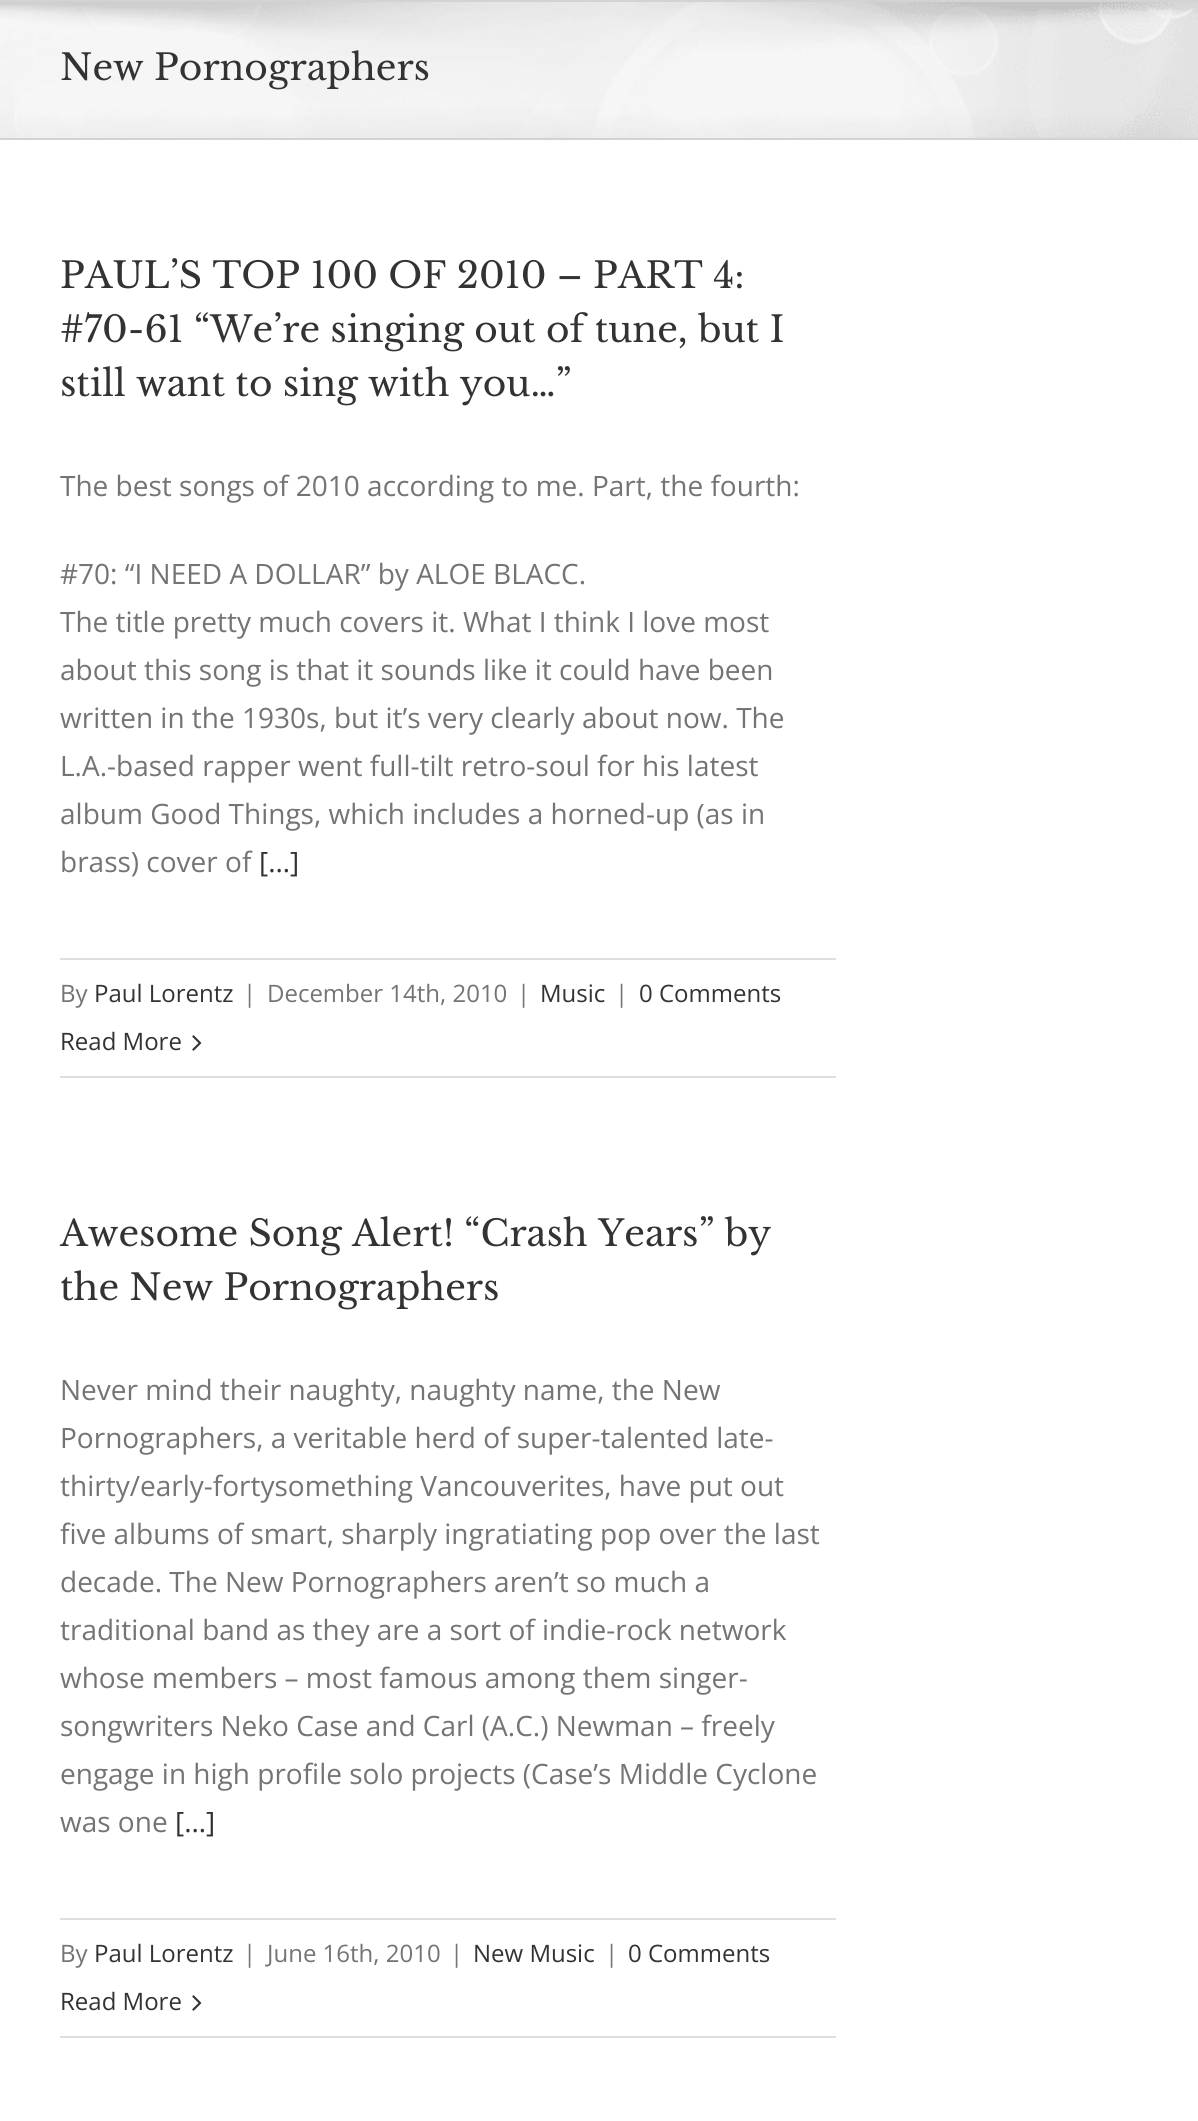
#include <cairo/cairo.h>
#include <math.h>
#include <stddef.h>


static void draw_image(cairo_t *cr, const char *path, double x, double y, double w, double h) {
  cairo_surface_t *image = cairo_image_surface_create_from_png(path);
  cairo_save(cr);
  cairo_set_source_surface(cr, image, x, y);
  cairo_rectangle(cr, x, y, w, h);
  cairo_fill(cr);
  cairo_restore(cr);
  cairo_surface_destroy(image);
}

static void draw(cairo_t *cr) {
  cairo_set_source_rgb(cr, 1, 1, 1);
  cairo_paint(cr);
  cairo_set_source_rgb(cr, 246 / 255.0, 246 / 255.0, 246 / 255.0);
  cairo_rectangle(cr, 0, 2, 1198, 136);
  cairo_fill(cr);
  draw_image(cr, "images/1.png", 0, 2, 1198, 136);
  cairo_set_source_rgb(cr, 210 / 255.0, 211 / 255.0, 212 / 255.0);
  cairo_rectangle(cr, 0, 0, 1198, 2);
  cairo_fill(cr);
  cairo_rectangle(cr, 0, 138, 1198, 2);
  cairo_fill(cr);
  cairo_set_source_rgb(cr, 224 / 255.0, 222 / 255.0, 222 / 255.0);
  cairo_rectangle(cr, 60, 958, 776, 2);
  cairo_fill(cr);
  cairo_rectangle(cr, 60, 1076, 776, 2);
  cairo_fill(cr);
  draw_image(cr, "images/2.png", 192, 1035, 10, 16);
  cairo_rectangle(cr, 60, 1918, 776, 2);
  cairo_fill(cr);
  cairo_rectangle(cr, 60, 2036, 776, 2);
  cairo_fill(cr);
  draw_image(cr, "images/2.png", 192, 1995, 10, 16);
  cairo_select_font_face(cr, "Libre Baskerville", CAIRO_FONT_SLANT_NORMAL, CAIRO_FONT_WEIGHT_NORMAL);
  cairo_set_font_size(cr, 36);
  cairo_set_source_rgb(cr, 51 / 255.0, 51 / 255.0, 51 / 255.0);
  cairo_move_to(cr, 60, 80);
  cairo_show_text(cr, "New Pornographers");
  cairo_move_to(cr, 60, 288);
  cairo_show_text(cr, "PAUL’S TOP 100 OF 2010 – PART 4:");
  cairo_move_to(cr, 60, 342);
  cairo_show_text(cr, "#70-61 “We’re singing out of tune, but I");
  cairo_move_to(cr, 60, 396);
  cairo_show_text(cr, "still want to sing with you…”");
  cairo_select_font_face(cr, "Open Sans", CAIRO_FONT_SLANT_NORMAL, CAIRO_FONT_WEIGHT_NORMAL);
  cairo_set_font_size(cr, 28);
  cairo_set_source_rgb(cr, 116 / 255.0, 116 / 255.0, 116 / 255.0);
  cairo_move_to(cr, 60, 496);
  cairo_show_text(cr, "The best songs of 2010 according to me. Part, the fourth:");
  cairo_move_to(cr, 60, 584);
  cairo_show_text(cr, "#70: “I NEED A DOLLAR” by ALOE BLACC.");
  cairo_move_to(cr, 60, 632);
  cairo_show_text(cr, "The title pretty much covers it. What I think I love most");
  cairo_move_to(cr, 60, 680);
  cairo_show_text(cr, "about this song is that it sounds like it could have been");
  cairo_move_to(cr, 60, 728);
  cairo_show_text(cr, "written in the 1930s, but it’s very clearly about now. The");
  cairo_move_to(cr, 60, 776);
  cairo_show_text(cr, "L.A.-based rapper went full-tilt retro-soul for his latest");
  cairo_move_to(cr, 60, 824);
  cairo_show_text(cr, "album Good Things, which includes a horned-up (as in");
  cairo_move_to(cr, 60, 872);
  cairo_show_text(cr, "brass) cover of");
  cairo_set_source_rgb(cr, 51 / 255.0, 51 / 255.0, 51 / 255.0);
  cairo_move_to(cr, 259, 872);
  cairo_show_text(cr, "[…]");
  cairo_set_font_size(cr, 24);
  cairo_set_source_rgb(cr, 116 / 255.0, 116 / 255.0, 116 / 255.0);
  cairo_move_to(cr, 60, 1002);
  cairo_show_text(cr, "By");
  cairo_set_source_rgb(cr, 51 / 255.0, 51 / 255.0, 51 / 255.0);
  cairo_move_to(cr, 94, 1002);
  cairo_show_text(cr, "Paul Lorentz");
  cairo_set_source_rgb(cr, 116 / 255.0, 116 / 255.0, 116 / 255.0);
  cairo_move_to(cr, 243, 1002);
  cairo_show_text(cr, "|");
  cairo_move_to(cr, 267, 1002);
  cairo_show_text(cr, "December 14th, 2010");
  cairo_move_to(cr, 517, 1002);
  cairo_show_text(cr, "|");
  cairo_set_source_rgb(cr, 51 / 255.0, 51 / 255.0, 51 / 255.0);
  cairo_move_to(cr, 540, 1002);
  cairo_show_text(cr, "Music");
  cairo_set_source_rgb(cr, 116 / 255.0, 116 / 255.0, 116 / 255.0);
  cairo_move_to(cr, 615, 1002);
  cairo_show_text(cr, "|");
  cairo_set_source_rgb(cr, 51 / 255.0, 51 / 255.0, 51 / 255.0);
  cairo_move_to(cr, 639, 1002);
  cairo_show_text(cr, "0 Comments");
  cairo_move_to(cr, 60, 1050);
  cairo_show_text(cr, "Read More");
  cairo_select_font_face(cr, "Libre Baskerville", CAIRO_FONT_SLANT_NORMAL, CAIRO_FONT_WEIGHT_NORMAL);
  cairo_set_font_size(cr, 36);
  cairo_move_to(cr, 60, 1246);
  cairo_show_text(cr, "Awesome Song Alert! “Crash Years” by");
  cairo_move_to(cr, 60, 1300);
  cairo_show_text(cr, "the New Pornographers");
  cairo_select_font_face(cr, "Open Sans", CAIRO_FONT_SLANT_NORMAL, CAIRO_FONT_WEIGHT_NORMAL);
  cairo_set_font_size(cr, 28);
  cairo_set_source_rgb(cr, 116 / 255.0, 116 / 255.0, 116 / 255.0);
  cairo_move_to(cr, 60, 1400);
  cairo_show_text(cr, "Never mind their naughty, naughty name, the New");
  cairo_move_to(cr, 60, 1448);
  cairo_show_text(cr, "Pornographers, a veritable herd of super-talented late-");
  cairo_move_to(cr, 60, 1496);
  cairo_show_text(cr, "thirty/early-fortysomething Vancouverites, have put out");
  cairo_move_to(cr, 60, 1544);
  cairo_show_text(cr, "five albums of smart, sharply ingratiating pop over the last");
  cairo_move_to(cr, 60, 1592);
  cairo_show_text(cr, "decade. The New Pornographers aren’t so much a");
  cairo_move_to(cr, 60, 1640);
  cairo_show_text(cr, "traditional band as they are a sort of indie-rock network");
  cairo_move_to(cr, 60, 1688);
  cairo_show_text(cr, "whose members – most famous among them singer-");
  cairo_move_to(cr, 60, 1736);
  cairo_show_text(cr, "songwriters Neko Case and Carl (A.C.) Newman – freely");
  cairo_move_to(cr, 60, 1784);
  cairo_show_text(cr, "engage in high profile solo projects (Case’s Middle Cyclone");
  cairo_move_to(cr, 60, 1832);
  cairo_show_text(cr, "was one");
  cairo_set_source_rgb(cr, 51 / 255.0, 51 / 255.0, 51 / 255.0);
  cairo_move_to(cr, 175, 1832);
  cairo_show_text(cr, "[…]");
  cairo_set_font_size(cr, 24);
  cairo_set_source_rgb(cr, 116 / 255.0, 116 / 255.0, 116 / 255.0);
  cairo_move_to(cr, 60, 1962);
  cairo_show_text(cr, "By");
  cairo_set_source_rgb(cr, 51 / 255.0, 51 / 255.0, 51 / 255.0);
  cairo_move_to(cr, 94, 1962);
  cairo_show_text(cr, "Paul Lorentz");
  cairo_set_source_rgb(cr, 116 / 255.0, 116 / 255.0, 116 / 255.0);
  cairo_move_to(cr, 243, 1962);
  cairo_show_text(cr, "|");
  cairo_move_to(cr, 267, 1962);
  cairo_show_text(cr, "June 16th, 2010");
  cairo_move_to(cr, 450, 1962);
  cairo_show_text(cr, "|");
  cairo_set_source_rgb(cr, 51 / 255.0, 51 / 255.0, 51 / 255.0);
  cairo_move_to(cr, 473, 1962);
  cairo_show_text(cr, "New Music");
  cairo_set_source_rgb(cr, 116 / 255.0, 116 / 255.0, 116 / 255.0);
  cairo_move_to(cr, 605, 1962);
  cairo_show_text(cr, "|");
  cairo_set_source_rgb(cr, 51 / 255.0, 51 / 255.0, 51 / 255.0);
  cairo_move_to(cr, 628, 1962);
  cairo_show_text(cr, "0 Comments");
  cairo_move_to(cr, 60, 2010);
  cairo_show_text(cr, "Read More");
}

int main(void) {
  cairo_surface_t *surface = cairo_image_surface_create(CAIRO_FORMAT_RGB24, 1198, 2121);
  cairo_t *cr = cairo_create(surface);
  cairo_font_options_t *options = cairo_font_options_create();
  cairo_font_options_set_hint_metrics(options, CAIRO_HINT_METRICS_OFF);
  cairo_font_options_set_hint_style(options, CAIRO_HINT_STYLE_NONE);
  cairo_set_font_options(cr, options);
  cairo_set_miter_limit(cr, 4);
  draw(cr);
  cairo_surface_write_to_png(surface, "out.png");
  cairo_font_options_destroy(options);
  cairo_destroy(cr);
  cairo_surface_destroy(surface);
  return 0;
}
